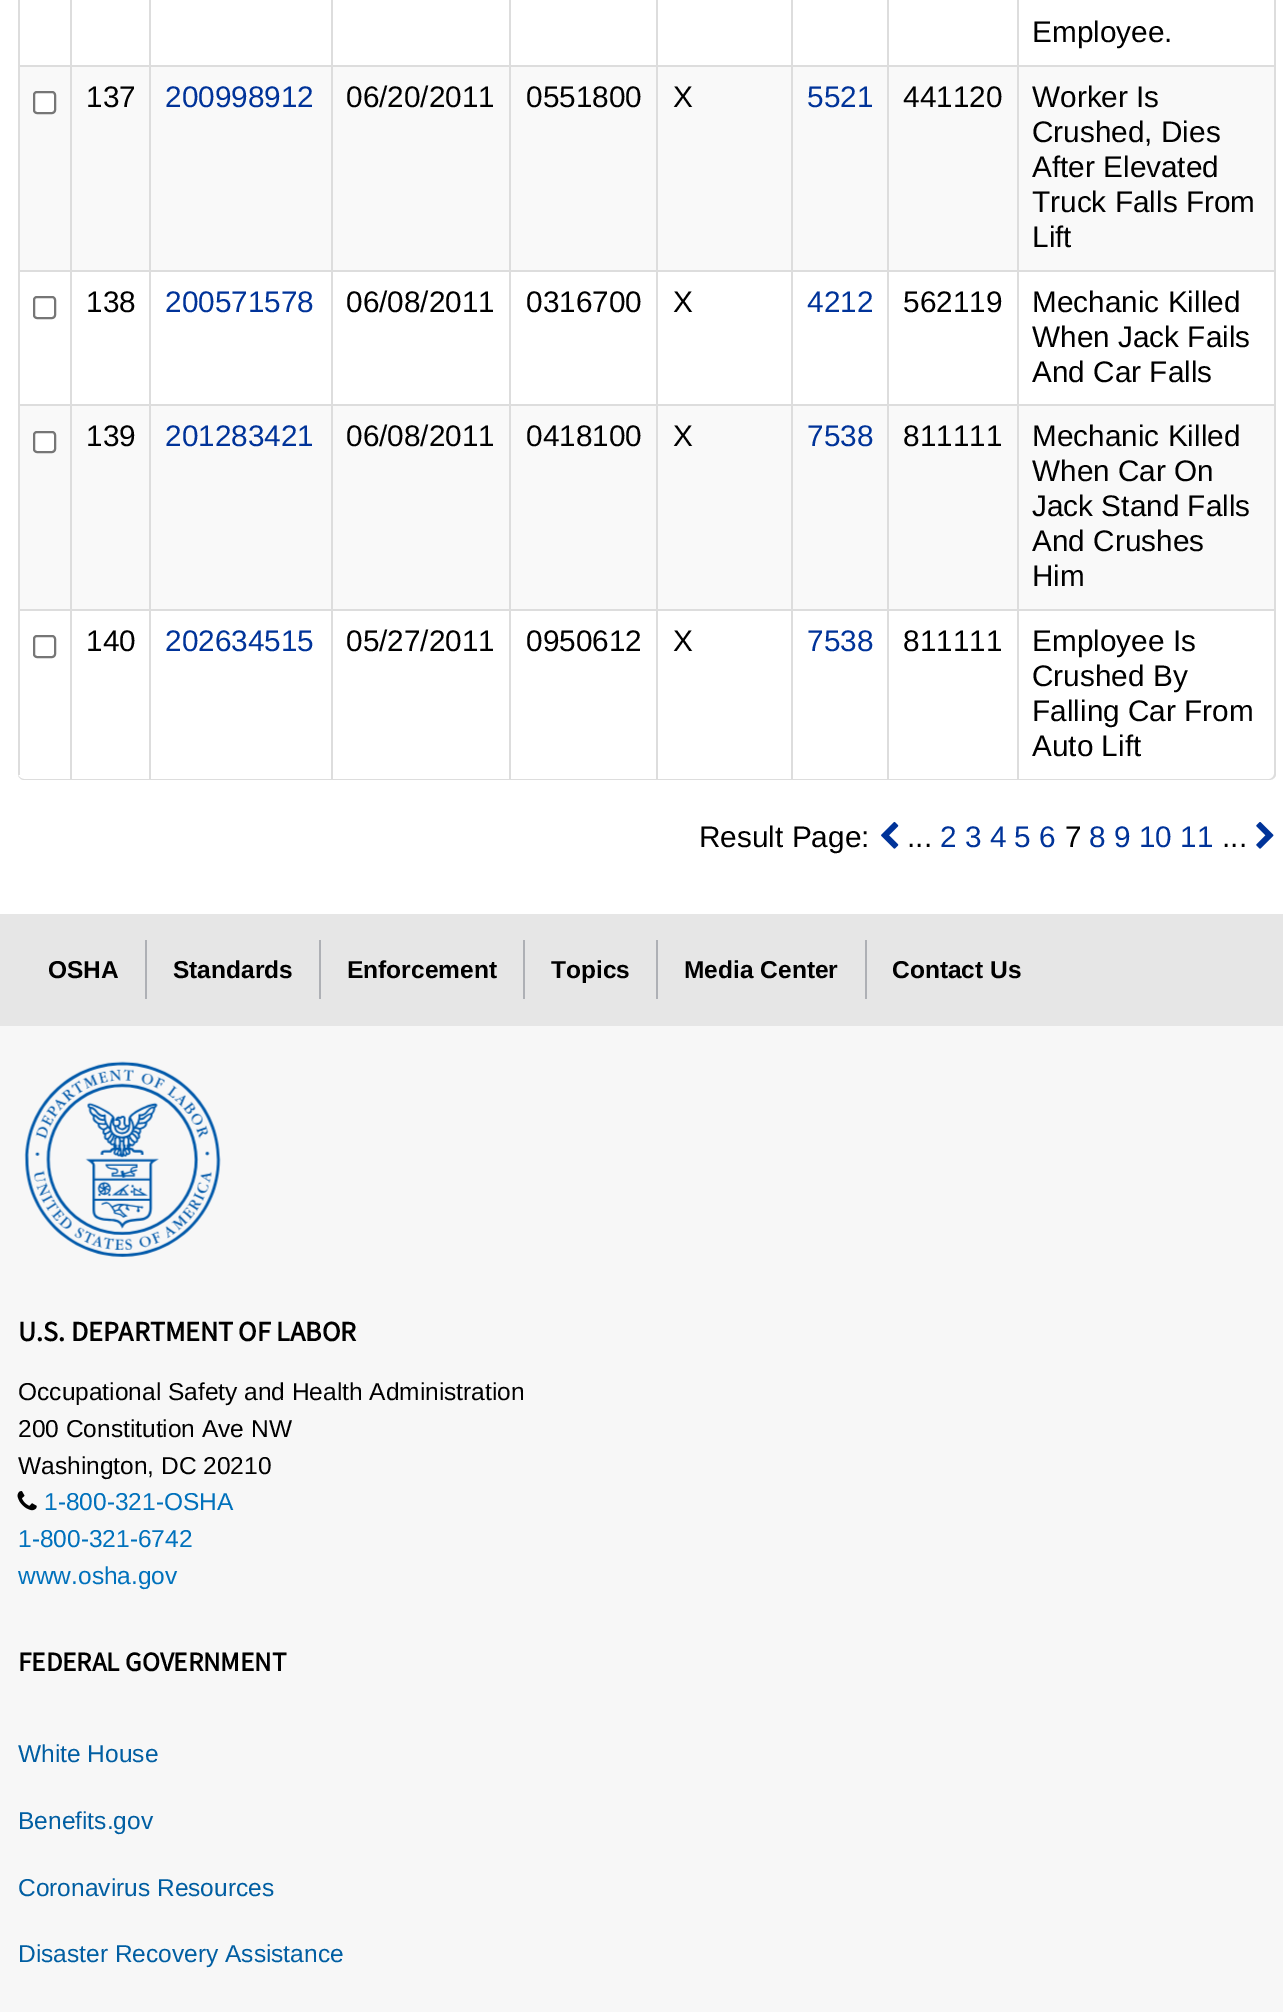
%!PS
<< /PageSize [1283 2012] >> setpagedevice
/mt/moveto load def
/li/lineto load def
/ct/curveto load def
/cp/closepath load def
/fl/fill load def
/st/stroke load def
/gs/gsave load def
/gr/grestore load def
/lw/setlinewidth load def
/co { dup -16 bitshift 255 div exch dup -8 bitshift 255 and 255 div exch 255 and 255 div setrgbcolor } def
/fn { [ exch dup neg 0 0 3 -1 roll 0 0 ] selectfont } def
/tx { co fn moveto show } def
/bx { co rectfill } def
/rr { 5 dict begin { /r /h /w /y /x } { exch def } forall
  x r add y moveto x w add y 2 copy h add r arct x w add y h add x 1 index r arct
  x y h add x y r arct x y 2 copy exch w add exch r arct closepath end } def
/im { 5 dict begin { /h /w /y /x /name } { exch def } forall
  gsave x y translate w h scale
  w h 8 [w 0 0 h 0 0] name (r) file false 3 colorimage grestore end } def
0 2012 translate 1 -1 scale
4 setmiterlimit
0 0 1283 2012 16#FFFFFF bx
16#DDDDDD co
24 -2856 mt 1269 -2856 li 1273 -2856 1276 -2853 1276 -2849 ct 1276 774 li 1276 777 1273 780 1269 780 ct 24 780 li 21 780 18 777 18 774 ct 18 -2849 li 18 -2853 21 -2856 24 -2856 ct cp 24 -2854 mt 1269 -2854 li 1272 -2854 1274 -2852 1274 -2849 ct 1274 774 li 1274 776 1272 779 1269 779 ct 24 779 li 21 779 18 776 18 774 ct 18 -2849 li 18 -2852 21 -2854 24 -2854 ct cp eofill
18 0 2 65 16#DDDDDD bx
70 0 2 65 16#DDDDDD bx
149 0 2 65 16#DDDDDD bx
331 0 2 65 16#DDDDDD bx
509 0 2 65 16#DDDDDD bx
656 0 2 65 16#DDDDDD bx
791 0 2 65 16#DDDDDD bx
887 0 2 65 16#DDDDDD bx
1017 0 2 65 16#DDDDDD bx
20 67 50 203 16#F9F9F9 bx
18 65 1256 2 16#DDDDDD bx
18 65 2 205 16#DDDDDD bx
16#FFFFFF co
34 92 21 21 3 rr gs fl gr
16#767676 co
2 lw
st
72 67 77 203 16#F9F9F9 bx
70 65 2 205 16#DDDDDD bx
151 67 180 203 16#F9F9F9 bx
149 65 2 205 16#DDDDDD bx
333 67 176 203 16#F9F9F9 bx
331 65 2 205 16#DDDDDD bx
511 67 145 203 16#F9F9F9 bx
509 65 2 205 16#DDDDDD bx
658 67 133 203 16#F9F9F9 bx
656 65 2 205 16#DDDDDD bx
793 67 94 203 16#F9F9F9 bx
791 65 2 205 16#DDDDDD bx
889 67 128 203 16#F9F9F9 bx
887 65 2 205 16#DDDDDD bx
1019 67 255 203 16#F9F9F9 bx
1017 65 2 205 16#DDDDDD bx
18 270 1256 2 16#DDDDDD bx
18 270 2 134 16#DDDDDD bx
16#767676 co
34 297 21 21 3 rr st
70 270 2 134 16#DDDDDD bx
149 270 2 134 16#DDDDDD bx
331 270 2 134 16#DDDDDD bx
509 270 2 134 16#DDDDDD bx
656 270 2 134 16#DDDDDD bx
791 270 2 134 16#DDDDDD bx
887 270 2 134 16#DDDDDD bx
1017 270 2 134 16#DDDDDD bx
20 406 50 203 16#F9F9F9 bx
18 404 1256 2 16#DDDDDD bx
18 404 2 205 16#DDDDDD bx
16#FFFFFF co
34 432 21 20 3 rr gs fl gr
16#767676 co
st
72 406 77 203 16#F9F9F9 bx
70 404 2 205 16#DDDDDD bx
151 406 180 203 16#F9F9F9 bx
149 404 2 205 16#DDDDDD bx
333 406 176 203 16#F9F9F9 bx
331 404 2 205 16#DDDDDD bx
511 406 145 203 16#F9F9F9 bx
509 404 2 205 16#DDDDDD bx
658 406 133 203 16#F9F9F9 bx
656 404 2 205 16#DDDDDD bx
793 406 94 203 16#F9F9F9 bx
791 404 2 205 16#DDDDDD bx
889 406 128 203 16#F9F9F9 bx
887 404 2 205 16#DDDDDD bx
1019 406 255 203 16#F9F9F9 bx
1017 404 2 205 16#DDDDDD bx
18 609 1256 2 16#DDDDDD bx
18 609 2 166 16#DDDDDD bx
16#767676 co
34 636 21 21 3 rr st
70 609 2 170 16#DDDDDD bx
149 609 2 170 16#DDDDDD bx
331 609 2 170 16#DDDDDD bx
509 609 2 170 16#DDDDDD bx
656 609 2 170 16#DDDDDD bx
791 609 2 170 16#DDDDDD bx
887 609 2 170 16#DDDDDD bx
1017 609 2 170 16#DDDDDD bx
(media/1.raw) 881 821 18 28 im
(media/2.raw) 1256 822 18 27 im
0 914 1283 112 16#E6E6E6 bx
145 940 2 59 16#AEB0B5 bx
319 940 2 59 16#AEB0B5 bx
523 940 2 59 16#AEB0B5 bx
656 940 2 59 16#AEB0B5 bx
865 940 2 59 16#AEB0B5 bx
0 1026 1283 986 16#F7F7F7 bx
(media/3.raw) 24 1061 197 196 im
(media/4.raw) 17 1491 20 20 im
(Employee.) 1032 42 /LiberationSans-Regular 29.75 16#000000 tx
(137) 86 107 /LiberationSans-Regular 29.75 16#000000 tx
(200998912) 165 107 /LiberationSans-Regular 29.75 16#003399 tx
(06/20/2011) 346 107 /LiberationSans-Regular 29.75 16#000000 tx
(0551800) 526 107 /LiberationSans-Regular 29.75 16#000000 tx
(X) 673 107 /LiberationSans-Regular 29.75 16#000000 tx
(5521) 807 107 /LiberationSans-Regular 29.75 16#003399 tx
(441120) 903 107 /LiberationSans-Regular 29.75 16#000000 tx
(Worker Is) 1032 107 /LiberationSans-Regular 29.75 16#000000 tx
(Crushed, Dies) 1032 142 /LiberationSans-Regular 29.75 16#000000 tx
(After Elevated) 1032 177 /LiberationSans-Regular 29.75 16#000000 tx
(Truck Falls From) 1032 212 /LiberationSans-Regular 29.75 16#000000 tx
(Lift) 1032 247 /LiberationSans-Regular 29.75 16#000000 tx
(138) 86 312 /LiberationSans-Regular 29.75 16#000000 tx
(200571578) 165 312 /LiberationSans-Regular 29.75 16#003399 tx
(06/08/2011) 346 312 /LiberationSans-Regular 29.75 16#000000 tx
(0316700) 526 312 /LiberationSans-Regular 29.75 16#000000 tx
(X) 673 312 /LiberationSans-Regular 29.75 16#000000 tx
(4212) 807 312 /LiberationSans-Regular 29.75 16#003399 tx
(562119) 903 312 /LiberationSans-Regular 29.75 16#000000 tx
(Mechanic Killed) 1032 312 /LiberationSans-Regular 29.75 16#000000 tx
(When Jack Fails) 1032 347 /LiberationSans-Regular 29.75 16#000000 tx
(And Car Falls) 1032 382 /LiberationSans-Regular 29.75 16#000000 tx
(139) 86 446 /LiberationSans-Regular 29.75 16#000000 tx
(201283421) 165 446 /LiberationSans-Regular 29.75 16#003399 tx
(06/08/2011) 346 446 /LiberationSans-Regular 29.75 16#000000 tx
(0418100) 526 446 /LiberationSans-Regular 29.75 16#000000 tx
(X) 673 446 /LiberationSans-Regular 29.75 16#000000 tx
(7538) 807 446 /LiberationSans-Regular 29.75 16#003399 tx
(811111) 903 446 /LiberationSans-Regular 29.75 16#000000 tx
(Mechanic Killed) 1032 446 /LiberationSans-Regular 29.75 16#000000 tx
(When Car On) 1032 481 /LiberationSans-Regular 29.75 16#000000 tx
(Jack Stand Falls) 1032 516 /LiberationSans-Regular 29.75 16#000000 tx
(And Crushes) 1032 551 /LiberationSans-Regular 29.75 16#000000 tx
(Him) 1032 586 /LiberationSans-Regular 29.75 16#000000 tx
(140) 86 651 /LiberationSans-Regular 29.75 16#000000 tx
(202634515) 165 651 /LiberationSans-Regular 29.75 16#003399 tx
(05/27/2011) 346 651 /LiberationSans-Regular 29.75 16#000000 tx
(0950612) 526 651 /LiberationSans-Regular 29.75 16#000000 tx
(X) 673 651 /LiberationSans-Regular 29.75 16#000000 tx
(7538) 807 651 /LiberationSans-Regular 29.75 16#003399 tx
(811111) 903 651 /LiberationSans-Regular 29.75 16#000000 tx
(Employee Is) 1032 651 /LiberationSans-Regular 29.75 16#000000 tx
(Crushed By) 1032 686 /LiberationSans-Regular 29.75 16#000000 tx
(Falling Car From) 1032 721 /LiberationSans-Regular 29.75 16#000000 tx
(Auto Lift) 1032 756 /LiberationSans-Regular 29.75 16#000000 tx
(Result Page:) 699 847 /LiberationSans-Regular 29.75 16#000000 tx
(...) 907 847 /LiberationSans-Regular 29.75 16#000000 tx
(2 3 4 5 6) 940 847 /LiberationSans-Regular 29.75 16#003399 tx
(7) 1065 847 /LiberationSans-Regular 29.75 16#000000 tx
(8 9 10 11) 1089 847 /LiberationSans-Regular 29.75 16#003399 tx
(...) 1222 847 /LiberationSans-Regular 29.75 16#000000 tx
(OSHA) 48 978 /LiberationSans-Bold 24.5 16#000000 tx
(Standards) 173 978 /LiberationSans-Bold 24.5 16#000000 tx
(Enforcement) 347 978 /LiberationSans-Bold 24.5 16#000000 tx
(Topics) 551 978 /LiberationSans-Bold 24.5 16#000000 tx
(Media Center) 684 978 /LiberationSans-Bold 24.5 16#000000 tx
(Contact Us) 892 978 /LiberationSans-Bold 24.5 16#000000 tx
(U.S. DEPARTMENT OF LABOR) 18 1341 /SourceSansPro-Bold 28 16#000000 tx
(Occupational Safety and Health Administration) 18 1400 /LiberationSans-Regular 24.5 16#000000 tx
(200 Constitution Ave NW) 18 1437 /LiberationSans-Regular 24.5 16#000000 tx
(Washington, DC 20210) 18 1474 /LiberationSans-Regular 24.5 16#000000 tx
(1-800-321-OSHA) 44 1510 /LiberationSans-Regular 24.5 16#0071BC tx
(1-800-321-6742) 18 1547 /LiberationSans-Regular 24.5 16#0071BC tx
(www.osha.gov) 18 1584 /LiberationSans-Regular 24.5 16#0071BC tx
(FEDERAL GOVERNMENT) 18 1671 /SourceSansPro-Bold 27 16#000000 tx
(White House) 18 1762 /LiberationSans-Regular 24.5 16#005EA2 tx
(Benefits.gov) 18 1829 /LiberationSans-Regular 24.5 16#005EA2 tx
(Coronavirus Resources) 18 1896 /LiberationSans-Regular 24.5 16#005EA2 tx
(Disaster Recovery Assistance) 18 1962 /LiberationSans-Regular 24.5 16#005EA2 tx
showpage
